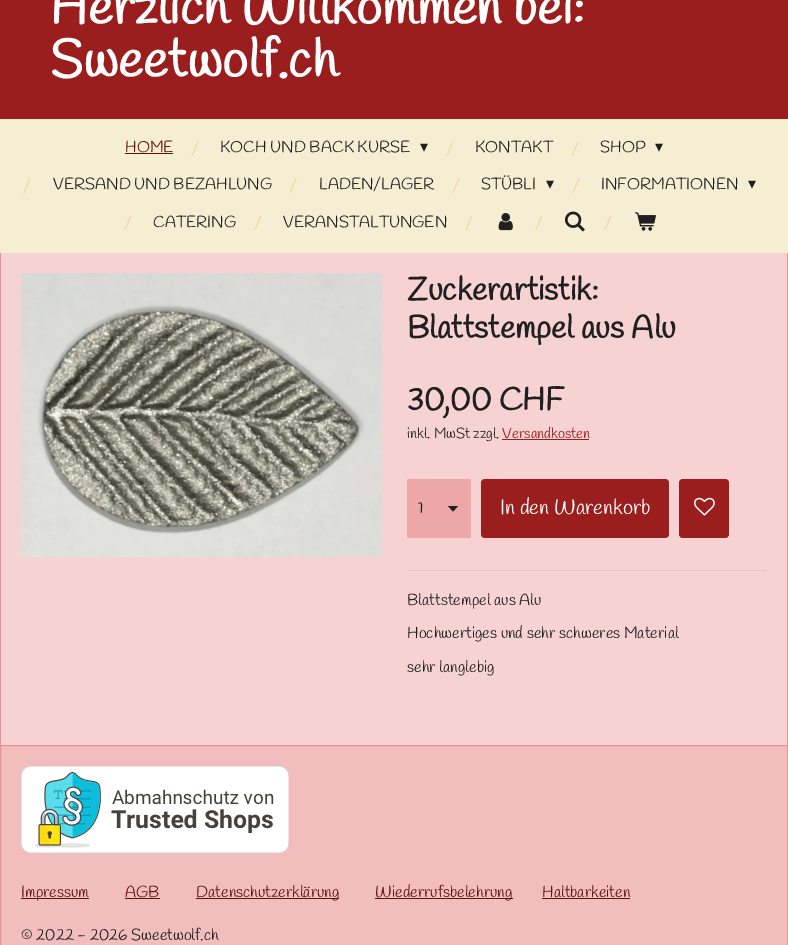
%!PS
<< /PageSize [788 945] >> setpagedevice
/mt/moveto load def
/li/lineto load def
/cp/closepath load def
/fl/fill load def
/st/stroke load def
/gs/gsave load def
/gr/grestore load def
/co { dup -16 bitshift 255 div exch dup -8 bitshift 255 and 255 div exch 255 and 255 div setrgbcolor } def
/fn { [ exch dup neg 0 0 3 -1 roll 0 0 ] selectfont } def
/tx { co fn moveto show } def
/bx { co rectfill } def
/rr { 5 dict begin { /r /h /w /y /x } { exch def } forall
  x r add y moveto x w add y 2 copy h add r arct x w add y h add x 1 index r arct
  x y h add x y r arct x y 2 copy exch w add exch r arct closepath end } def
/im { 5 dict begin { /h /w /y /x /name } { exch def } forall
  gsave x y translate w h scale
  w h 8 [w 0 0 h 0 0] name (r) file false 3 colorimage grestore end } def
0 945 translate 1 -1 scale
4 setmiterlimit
0 0 788 945 16#9A1E1E bx
0 119 788 134 16#F6EED2 bx
125 153 48 1 16#611313 bx
(media/1.raw) 498 213 15 18 im
(media/2.raw) 565 211 20 21 im
(media/3.raw) 635 212 21 19 im
1 253 786 492 16#F6D2D2 bx
787 253 1 492 16#E99292 bx
0 253 1 492 16#E99292 bx
(media/4.raw) 21 273 361 284 im
502 439 87 1 16#9A1E1E bx
16#EEA7A7 co
407 479 64 59 2 rr fl
16#202020 co
453 511.5 mt 448 506 li 458 506 li cp fl
16#9A1E1E co
481 479 188 59 4 rr fl
679 479 50 59 4 rr fl
(media/5.raw) 694 497 21 19 im
407 570 360 1 16#E7C6C6 bx
16#F2BDBD co
.5 745.5 mt 787.5 745.5 li 787.5 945.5 li .5 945.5 li cp gs fl gr
16#E99292 co
st
(media/6.raw) 21 766 268 87 im
21 898 68 1 16#611313 bx
125 898 35 1 16#611313 bx
196 898 143 1 16#611313 bx
375 898 138 1 16#611313 bx
542 898 88 1 16#611313 bx
(Herzlich Willkommen bei:) 50 24 /Handlee-Bold 52.5 16#FFFFFF tx
(Sweetwolf.ch) 50 77 /Handlee-Bold 52.5 16#FFFFFF tx
(HOME) 125 152 /Handlee-Regular 16 16#611313 tx
(/) 191 154 /Handlee-Regular 16 16#E9D692 tx
(KOCH UND BACK KURSE) 220 152 /Handlee-Regular 16 16#202020 tx
(▾) 420 152 /DejaVuSans-Regular 16 16#202020 tx
(/) 446 154 /Handlee-Regular 16 16#E9D692 tx
(KONTAKT) 475 152 /Handlee-Regular 16 16#202020 tx
(/) 571 154 /Handlee-Regular 16 16#E9D692 tx
(SHOP) 600 152 /Handlee-Regular 16 16#202020 tx
(▾) 655 152 /DejaVuSans-Regular 16 16#202020 tx
(/) 23 191 /Handlee-Regular 16 16#E9D692 tx
(VERSAND UND BEZAHLUNG) 53 189 /Handlee-Regular 16 16#202020 tx
(/) 289 191 /Handlee-Regular 16 16#E9D692 tx
(LADEN/LAGER) 319 189 /Handlee-Regular 16 16#202020 tx
(/) 452 191 /Handlee-Regular 16 16#E9D692 tx
(STÜBLI) 481 189 /Handlee-Regular 16 16#202020 tx
(▾) 546 189 /DejaVuSans-Regular 16 16#202020 tx
(/) 572 191 /Handlee-Regular 16 16#E9D692 tx
(INFORMATIONEN) 601 189 /Handlee-Regular 16 16#202020 tx
(▾) 748 189 /DejaVuSans-Regular 16 16#202020 tx
(/) 124 228 /Handlee-Regular 16 16#E9D692 tx
(CATERING) 153 227 /Handlee-Regular 16 16#202020 tx
(/) 254 228 /Handlee-Regular 16 16#E9D692 tx
(VERANSTALTUNGEN) 283 227 /Handlee-Regular 16 16#202020 tx
(/) 465 228 /Handlee-Regular 16 16#E9D692 tx
(/) 535 228 /Handlee-Regular 16 16#E9D692 tx
(/) 604 228 /Handlee-Regular 16 16#E9D692 tx
(Zuckerartistik:) 407 300 /Handlee-Bold 32 16#202020 tx
(Blattstempel aus Alu) 407 338 /Handlee-Bold 32 16#202020 tx
(30,00 CHF) 407 410 /Handlee-Bold 32 16#202020 tx
(inkl. MwSt zzgl.) 407 438 /Handlee-Regular 14.5 16#202020 tx
(Versandkosten) 502 438 /Handlee-Regular 14.5 16#9A1E1E tx
(1) 418 513 /Handlee-Regular 16 16#202020 tx
(In den Warenkorb) 500 514 /Handlee-Regular 20.75 16#FFFFFF tx
(Blattstempel aus Alu) 407 605 /Handlee-Regular 16 16#202020 tx
(Hochwertiges und sehr schweres Material) 407 638 /Handlee-Regular 16 16#202020 tx
(sehr langlebig) 407 672 /Handlee-Regular 16 16#202020 tx
(Impressum) 21 897 /Handlee-Regular 16 16#611313 tx
(AGB) 125 897 /Handlee-Regular 16 16#611313 tx
(Datenschutzerklärung) 196 897 /Handlee-Regular 16 16#611313 tx
(Wiederrufsbelehrung) 375 897 /Handlee-Regular 16 16#611313 tx
(Haltbarkeiten) 542 897 /Handlee-Regular 16 16#611313 tx
(© 2022 - 2026 Sweetwolf.ch) 21 940 /Handlee-Regular 16 16#202020 tx
showpage
